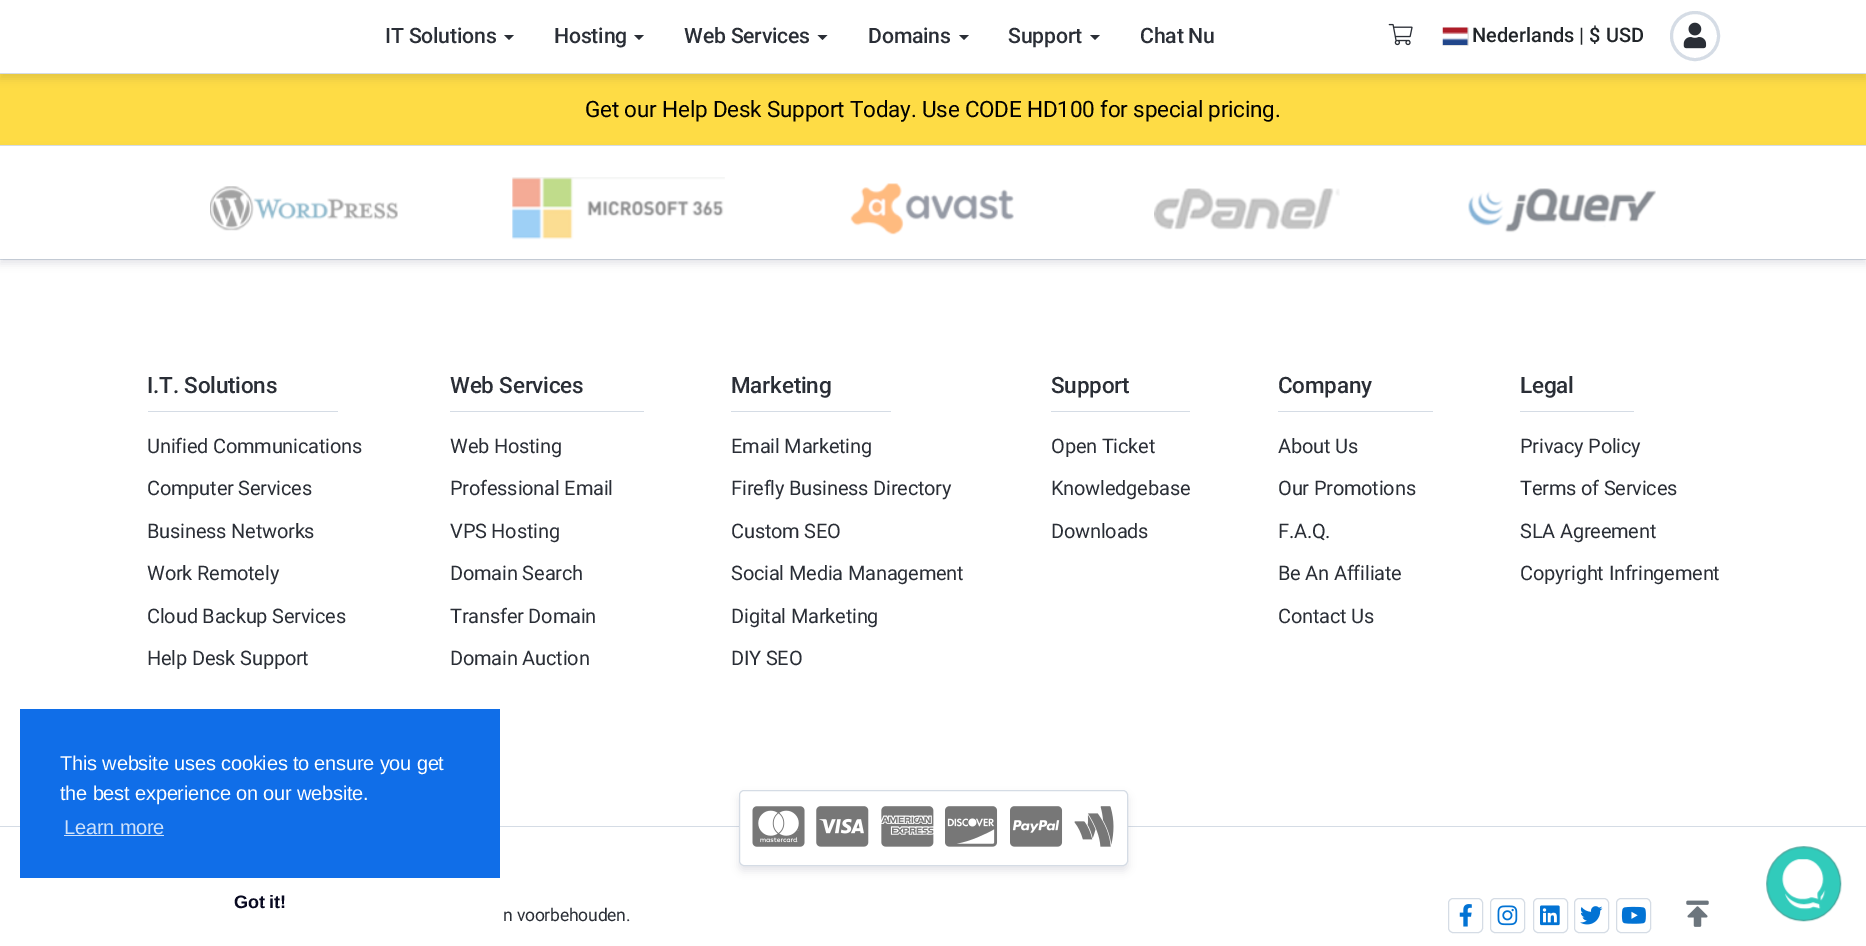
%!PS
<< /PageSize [1866 946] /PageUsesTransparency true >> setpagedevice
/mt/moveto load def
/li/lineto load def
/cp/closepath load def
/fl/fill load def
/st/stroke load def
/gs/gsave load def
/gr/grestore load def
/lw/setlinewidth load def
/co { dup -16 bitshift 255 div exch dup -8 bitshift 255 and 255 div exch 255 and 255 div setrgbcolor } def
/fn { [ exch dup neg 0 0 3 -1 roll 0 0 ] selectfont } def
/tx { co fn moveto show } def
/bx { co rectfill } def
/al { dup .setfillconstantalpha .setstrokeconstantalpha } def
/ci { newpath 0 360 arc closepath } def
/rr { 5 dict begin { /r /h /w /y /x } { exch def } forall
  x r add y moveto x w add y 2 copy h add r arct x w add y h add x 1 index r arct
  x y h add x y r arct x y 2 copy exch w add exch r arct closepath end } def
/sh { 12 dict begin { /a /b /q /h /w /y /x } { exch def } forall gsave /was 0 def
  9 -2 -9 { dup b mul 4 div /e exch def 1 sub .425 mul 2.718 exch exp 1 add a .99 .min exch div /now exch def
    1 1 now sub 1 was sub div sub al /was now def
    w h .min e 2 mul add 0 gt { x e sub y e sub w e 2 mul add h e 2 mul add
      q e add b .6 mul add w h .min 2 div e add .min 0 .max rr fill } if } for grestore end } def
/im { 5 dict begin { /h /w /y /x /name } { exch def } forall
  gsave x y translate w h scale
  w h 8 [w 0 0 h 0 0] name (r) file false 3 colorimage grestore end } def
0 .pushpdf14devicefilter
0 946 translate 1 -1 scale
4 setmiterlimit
0 0 1866 946 16#FFFFFF bx
0 74 1866 71 16#FEDC45 bx
16#000B28 co
0 5 1866 74 0 4 .1 sh
0 0 1866 73 16#FFFFFF bx
0 73 1866 1 16#D5DCE5 bx
16#2A2E36 co
504 35 mt 514 35 li 509 40 li cp fl
634 35 mt 644 35 li 639 40 li cp fl
817.5 35 mt 827.5 35 li 822.5 40 li cp fl
959 35 mt 969 35 li 964 40 li cp fl
1090 35 mt 1100 35 li 1095 40 li cp fl
(media/1.raw) 1388 23 25 23 im
16#888888 co
1443 28 25 17 0 .5 1 sh
1467 28 1 17 16#DBDBDB bx
(media/2.raw) 1442 27 26 18 im
16#D5DCE5 co
3 lw
1695 36 23.5 ci st
(media/3.raw) 1683 22 24 27 im
0 259 1866 1 16#D5DCE5 bx
gs
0 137 mt 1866 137 li 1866 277 li 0 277 li cp 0 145 mt 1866 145 li 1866 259 li 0 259 li cp eoclip newpath
16#000B28 co
0 150 1866 114 0 4 .1 sh
gr
0 145 1866 1 16#D5DCE5 bx
(media/4.raw) 210 186 188 45 im
(media/5.raw) 512 177 213 63 im
(media/6.raw) 850 183 164 52 im
(media/7.raw) 1154 188 186 42 im
(media/8.raw) 1468 188 188 45 im
148 411 190 1 16#D5DCE5 bx
450 411 194 1 16#D5DCE5 bx
731 411 160 1 16#D5DCE5 bx
1051 411 139 1 16#D5DCE5 bx
1278 411 155 1 16#D5DCE5 bx
1520 411 114 1 16#D5DCE5 bx
0 826 1866 1 16#D5DCE5 bx
16#000B28 co
739 795 389 76 5 4 .1 sh
16#FFFFFF co
739.5 790.5 388 75 4.5 rr gs fl gr
16#D5DCE5 co
1 lw
st
(media/9.raw) 752 806 53 41 im
(media/10.raw) 816 806 53 41 im
(media/11.raw) 881 806 53 41 im
(media/12.raw) 945 806 53 41 im
(media/13.raw) 1010 806 53 41 im
(media/14.raw) 1074 806 40 41 im
1448.5 898.5 34 34 4.5 rr st
(media/15.raw) 1459 904 13 23 im
1490.5 898.5 34 34 4.5 rr st
(media/16.raw) 1497 905 21 21 im
1533.5 898.5 34 34 4.5 rr st
(media/17.raw) 1540 905 20 21 im
1574.5 898.5 34 34 4.5 rr st
(media/18.raw) 1580 906 23 19 im
1616.5 898.5 34 34 4.5 rr st
(media/19.raw) 1621 906 25 18 im
(media/20.raw) 1686 900 23 27 im
20 709 480 169 16#106EE8 bx
64 835 100 1 16#CFE2FA bx
(media/21.raw) 1766 846 76 76 im
/Roboto-Medium 21.25 fn
16#2A2E36 co
385 43 mt -.2 0 (IT Solutions) ashow
554 43 mt -.2 0 (Hosting) ashow
684 43 mt -.2 0 (Web Services) ashow
868 43 mt -.2 0 (Domains) ashow
1008 43 mt -.2 0 (Support) ashow
1140 43 mt -.2 0 (Chat Nu) ashow
(Nederlands | $ USD) 1472 42 /Roboto-Medium 20 16#212529 tx
/Roboto-Regular 22.5 fn
16#000000 co
585 117 mt -.2 0 (Get our Help Desk Support Today. Use CODE HD100 for special pricing.) ashow
/Roboto-Medium 22.5 fn
16#2A2E36 co
147 393 mt -.2 0 (I.T. Solutions) ashow
/Roboto-Regular 20 fn
147 453 mt -.2 0 (Unified Communications) ashow
147 495 mt -.2 0 (Computer Services) ashow
147 538 mt -.2 0 (Business Networks) ashow
147 580 mt -.2 0 (Work Remotely) ashow
147 623 mt -.2 0 (Cloud Backup Services) ashow
147 665 mt -.2 0 (Help Desk Support) ashow
/Roboto-Medium 22.5 fn
450 393 mt -.2 0 (Web Services) ashow
/Roboto-Regular 20 fn
450 453 mt -.2 0 (Web Hosting) ashow
450 495 mt -.2 0 (Professional Email) ashow
450 538 mt -.2 0 (VPS Hosting) ashow
450 580 mt -.2 0 (Domain Search) ashow
450 623 mt -.2 0 (Transfer Domain) ashow
450 665 mt -.2 0 (Domain Auction) ashow
/Roboto-Medium 22.5 fn
731 393 mt -.2 0 (Marketing) ashow
/Roboto-Regular 20 fn
731 453 mt -.2 0 (Email Marketing) ashow
731 495 mt -.2 0 (Firefly Business Directory) ashow
731 538 mt -.2 0 (Custom SEO) ashow
731 580 mt -.2 0 (Social Media Management) ashow
731 623 mt -.2 0 (Digital Marketing) ashow
731 665 mt -.2 0 (DIY SEO) ashow
/Roboto-Medium 22.5 fn
1051 393 mt -.2 0 (Support) ashow
/Roboto-Regular 20 fn
1051 453 mt -.2 0 (Open Ticket) ashow
1051 495 mt -.2 0 (Knowledgebase) ashow
1051 538 mt -.2 0 (Downloads) ashow
/Roboto-Medium 22.5 fn
1278 393 mt -.2 0 (Company) ashow
/Roboto-Regular 20 fn
1278 453 mt -.2 0 (About Us) ashow
1278 495 mt -.2 0 (Our Promotions) ashow
1278 538 mt -.2 0 (F.A.Q.) ashow
1278 580 mt -.2 0 (Be An Affiliate) ashow
1278 623 mt -.2 0 (Contact Us) ashow
/Roboto-Medium 22.5 fn
1520 393 mt -.2 0 (Legal) ashow
/Roboto-Regular 20 fn
1520 453 mt -.2 0 (Privacy Policy) ashow
1520 495 mt -.2 0 (Terms of Services) ashow
1520 538 mt -.2 0 (SLA Agreement) ashow
1520 580 mt -.2 0 (Copyright Infringement) ashow
/Roboto-Regular 17.5 fn
503 921 mt -.2 0 (n voorbehouden.) ashow
/LiberationSans-Regular 20 fn
16#FFFFFF co
60 770 mt -.2 0 (This website uses cookies to ensure you get) ashow
60 800 mt -.2 0 (the best experience on our website.) ashow
16#CFE2FA co
64 834 mt -.2 0 (Learn more) ashow
/LiberationSans-Bold 18 fn
16#090A21 co
234 908 mt -.2 0 (Got it!) ashow
.poppdf14devicefilter showpage
